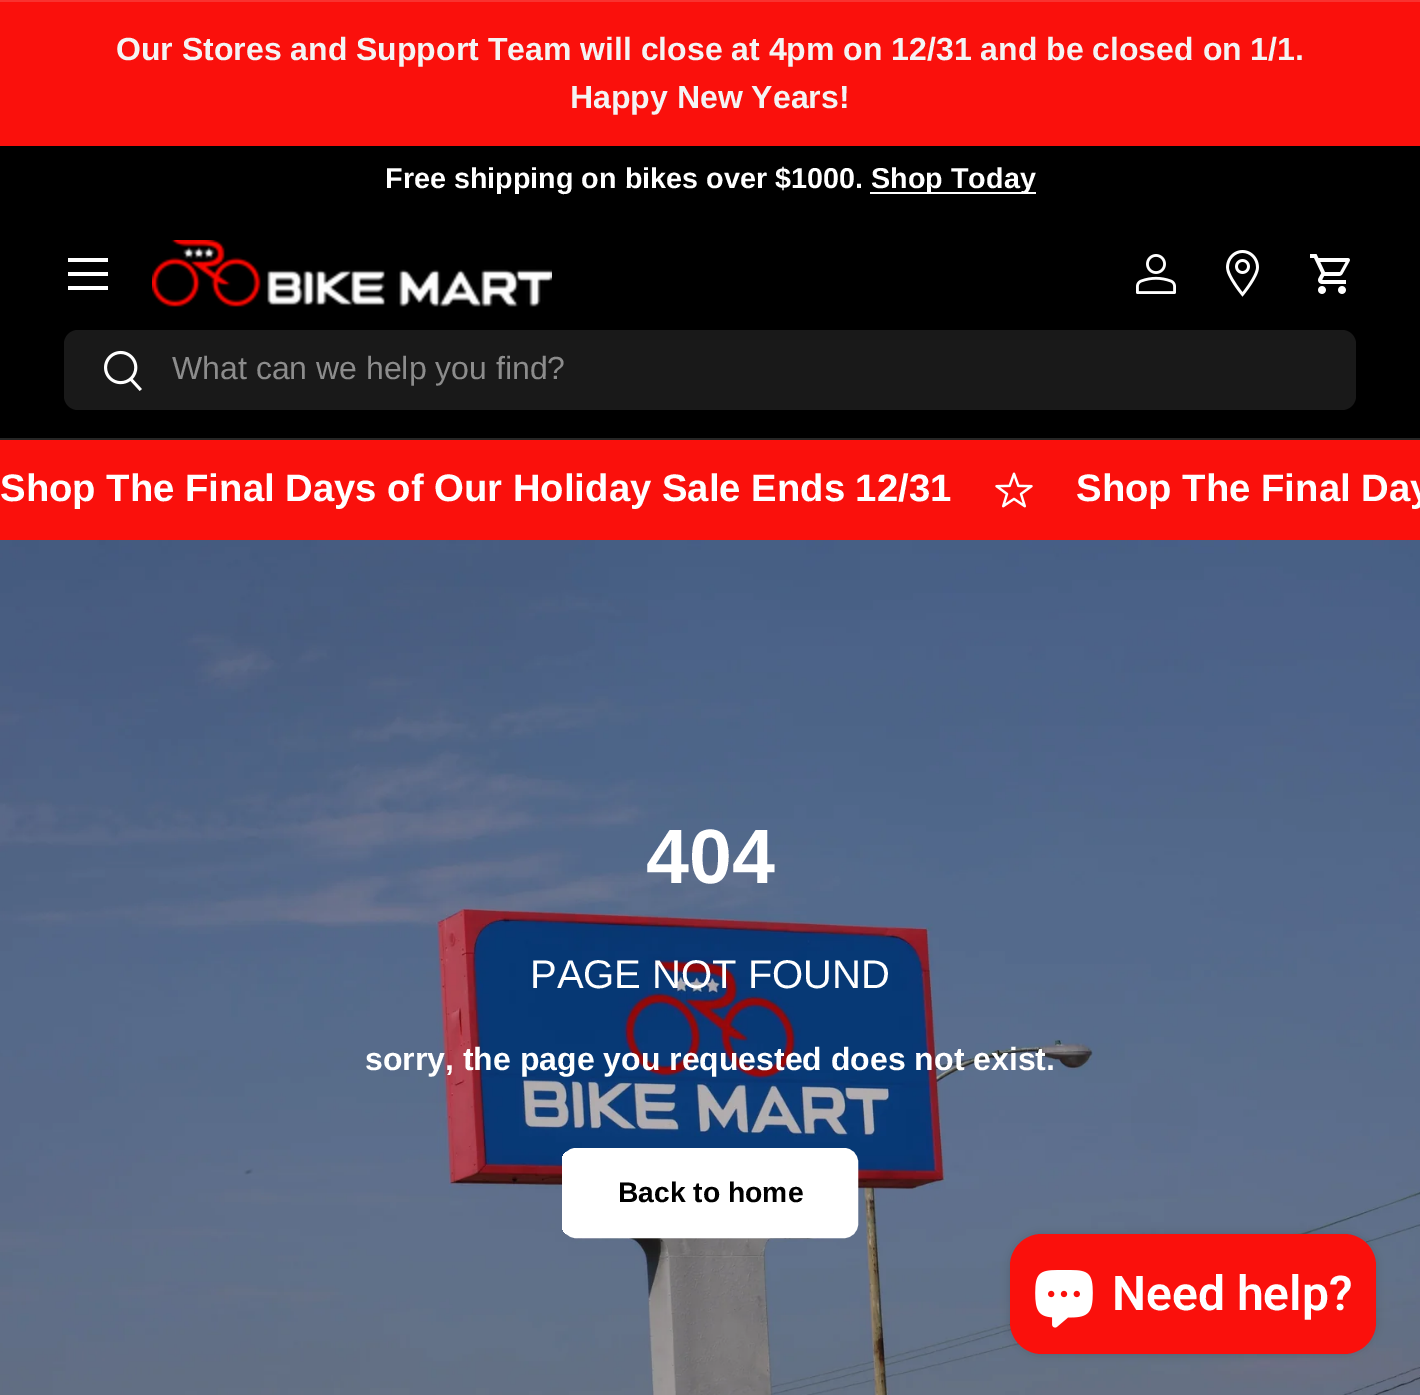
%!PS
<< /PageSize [1420 1395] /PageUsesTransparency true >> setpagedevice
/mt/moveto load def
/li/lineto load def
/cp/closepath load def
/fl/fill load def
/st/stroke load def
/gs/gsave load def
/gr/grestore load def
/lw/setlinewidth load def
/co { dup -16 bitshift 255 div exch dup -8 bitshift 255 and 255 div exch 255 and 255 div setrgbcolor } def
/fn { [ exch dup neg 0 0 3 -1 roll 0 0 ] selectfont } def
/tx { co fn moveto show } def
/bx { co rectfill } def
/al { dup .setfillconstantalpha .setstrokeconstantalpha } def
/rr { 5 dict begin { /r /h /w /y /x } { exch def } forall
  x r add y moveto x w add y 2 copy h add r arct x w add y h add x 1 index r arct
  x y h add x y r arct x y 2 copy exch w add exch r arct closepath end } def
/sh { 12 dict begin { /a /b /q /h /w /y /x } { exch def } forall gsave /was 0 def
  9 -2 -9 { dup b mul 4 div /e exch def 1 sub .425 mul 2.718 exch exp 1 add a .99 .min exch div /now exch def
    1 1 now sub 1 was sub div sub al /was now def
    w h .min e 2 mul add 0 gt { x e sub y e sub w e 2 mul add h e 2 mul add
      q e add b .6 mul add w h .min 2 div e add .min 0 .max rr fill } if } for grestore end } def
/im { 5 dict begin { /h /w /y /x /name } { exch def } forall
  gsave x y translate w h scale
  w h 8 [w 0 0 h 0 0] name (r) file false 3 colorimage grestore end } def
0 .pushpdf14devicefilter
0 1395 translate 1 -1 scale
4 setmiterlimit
0 0 1420 1395 16#FA100C bx
0 0 1420 2 16#F9322F bx
0 146 1420 292 16#000000 bx
870 192 166 2 16#FFFFFF bx
0 438 1420 2 16#262626 bx
68 258 40 4 16#FFFFFF bx
68 286 40 4 16#FFFFFF bx
68 272 40 4 16#FFFFFF bx
(media/1.raw) 152 240 400 67 im
(media/2.raw) 1136 254 40 40 im
(media/3.raw) 1226 250 33 47 im
(media/4.raw) 1310 254 40 40 im
16#191919 co
64 330 1292 80 14 rr fl
(media/5.raw) 104 350 38 41 im
(media/6.raw) 995 472 38 36 im
(media/7.raw) 0 540 1420 855 im
gs
562 1148 296 90 14 rr clip newpath
gs 562 1152 mt 854 1152 li 854 1234 li 562 1234 li cp clip newpath
<< /ShadingType 2 /ColorSpace /DeviceRGB /Coords [5.7 1089 838 1297] /Extend [true true] /Function << /FunctionType 3 /Domain [0 1] /Functions [<< /FunctionType 2 /Domain [0 1] /C0 [.902 .902 .902] /C1 [.902 .902 .902] /N 1 >> << /FunctionType 2 /Domain [0 1] /C0 [1 1 1] /C1 [1 1 1] /N 1 >>] /Bounds [.6] /Encode [0 1 0 1] >> >> shfill gr
gr
16#FFFFFF co
4 lw
564 1150 292 86 12 rr st
16#000000 co
1010 1234 366 120 32 5 .15 sh
16#FA100C co
1010 1234 366 120 32 rr fl
(media/8.raw) 1035 1270 58 58 im
(Our Stores and Support Team will close at 4pm on 12/31 and be closed on 1/1.) 116 60 /LiberationSans-Bold 32 16#F4F4F4 tx
(Happy New Years!) 570 108 /LiberationSans-Bold 32 16#F4F4F4 tx
(Free shipping on bikes over $1000.) 385 188 /LiberationSans-Bold 28.75 16#FFFFFF tx
(Shop Today) 871 188 /LiberationSans-Bold 28.75 16#FFFFFF tx
(What can we help you find?) 172 379 /LiberationSans-Regular 32 16#8C8C8C tx
(Shop The Final Days of Our Holiday Sale Ends 12/31) 0 501 /LiberationSans-Bold 38.3 16#FFFFFF tx
(Shop The Final Day) 1076 501 /LiberationSans-Bold 38.3 16#FFFFFF tx
(404) 646 883 /LiberationSans-Bold 77 16#FFFFFF tx
(PAGE NOT FOUND) 530 988 /LiberationSans-Regular 40 16#FFFFFF tx
(sorry, the page you requested does not exist.) 365 1070 /LiberationSans-Bold 32 16#FFFFFF tx
(Back to home) 618 1202 /LiberationSans-Bold 28.25 16#000000 tx
(Need help?) 1112 1310 /Roboto-SemiBold 48 16#FFFFFF tx
.poppdf14devicefilter showpage
